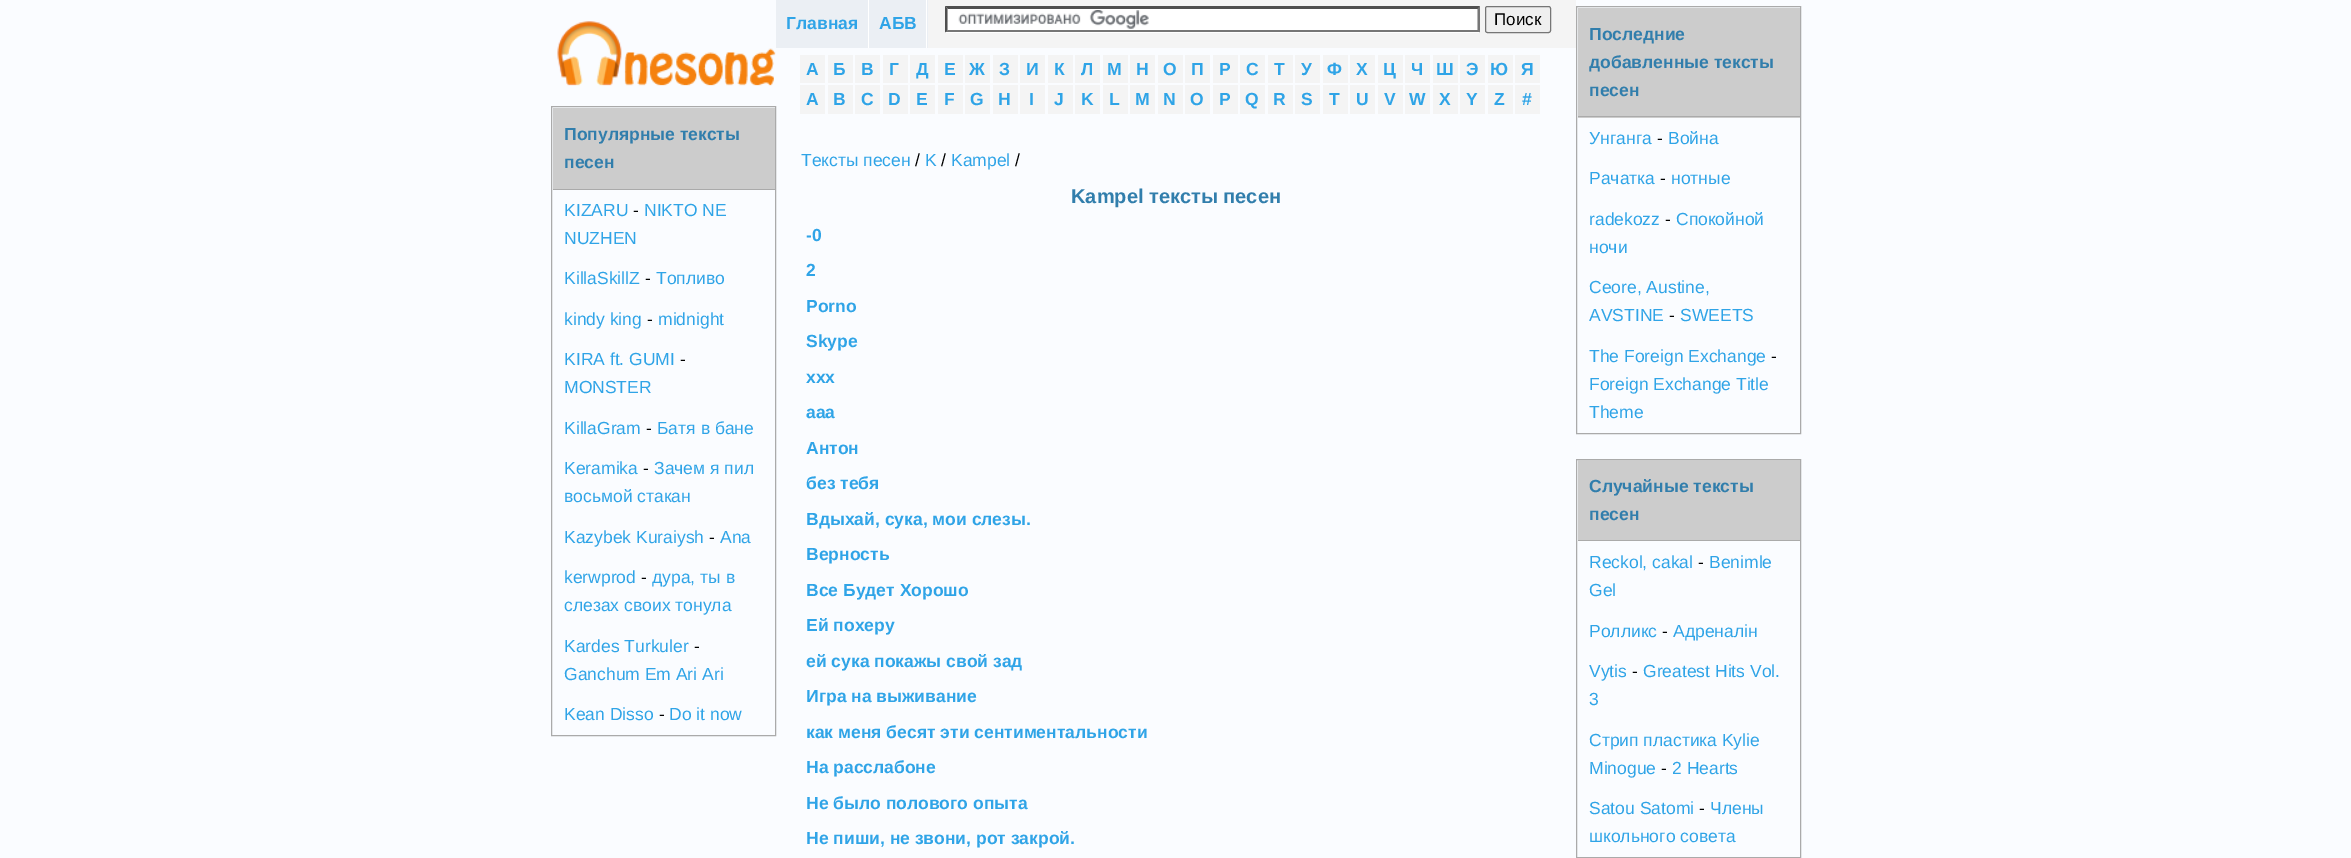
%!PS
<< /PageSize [2351 858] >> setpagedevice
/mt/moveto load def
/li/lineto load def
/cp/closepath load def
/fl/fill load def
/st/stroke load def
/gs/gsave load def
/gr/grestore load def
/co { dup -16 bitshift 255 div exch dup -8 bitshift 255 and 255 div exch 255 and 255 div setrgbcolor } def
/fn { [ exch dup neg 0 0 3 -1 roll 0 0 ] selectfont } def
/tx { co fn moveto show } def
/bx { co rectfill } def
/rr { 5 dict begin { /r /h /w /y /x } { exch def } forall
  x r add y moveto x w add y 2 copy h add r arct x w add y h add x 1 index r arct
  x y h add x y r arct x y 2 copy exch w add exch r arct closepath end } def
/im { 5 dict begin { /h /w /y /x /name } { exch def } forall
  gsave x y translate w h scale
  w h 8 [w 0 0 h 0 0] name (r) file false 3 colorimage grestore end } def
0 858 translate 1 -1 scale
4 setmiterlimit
0 0 2351 858 16#FAFCFF bx
(media/1.raw) 557 21 219 65 im
16#AAAAAA co
551.5 106.5 224 629 rectstroke
553 108 222 81 16#CCCCCC bx
553 189 222 1 16#AAAAAA bx
928 0 648 48 16#F4F4F4 bx
776 0 92 48 16#EBEFF4 bx
868 0 1 48 16#FFFFFF bx
869 0 59 48 16#EBEFF4 bx
926 0 1 48 16#FFFFFF bx
945 6 535 27 16#FFFFFF bx
(media/2.raw) 958 10 191 19 im
16#4F4F4F co
945 6 mt 1480 6 li 1478 9 li 948 9 li cp fl
16#767676 co
1480 6 mt 1480 32.5 li 1477.5 30 li 1477.5 9 li cp fl
1480 32 mt 945 32 li 948 30 li 1478 30 li cp fl
16#4F4F4F co
945 32.5 mt 945 6 li 947.5 9 li 947.5 30 li cp fl
16#EFEFEF co
1485.5 6.5 65 26 2 rr gs fl gr
16#767676 co
st
800 55 25 28 16#F4F4F4 bx
828 55 25 28 16#F4F4F4 bx
855 55 25 28 16#F4F4F4 bx
883 55 25 28 16#F4F4F4 bx
910 55 25 28 16#F4F4F4 bx
938 55 25 28 16#F4F4F4 bx
965 55 25 28 16#F4F4F4 bx
993 55 25 28 16#F4F4F4 bx
1020 55 25 28 16#F4F4F4 bx
1048 55 25 28 16#F4F4F4 bx
1075 55 25 28 16#F4F4F4 bx
1103 55 25 28 16#F4F4F4 bx
1130 55 25 28 16#F4F4F4 bx
1158 55 25 28 16#F4F4F4 bx
1185 55 25 28 16#F4F4F4 bx
1213 55 25 28 16#F4F4F4 bx
1240 55 25 28 16#F4F4F4 bx
1268 55 25 28 16#F4F4F4 bx
1295 55 25 28 16#F4F4F4 bx
1323 55 25 28 16#F4F4F4 bx
1350 55 25 28 16#F4F4F4 bx
1378 55 25 28 16#F4F4F4 bx
1405 55 25 28 16#F4F4F4 bx
1433 55 25 28 16#F4F4F4 bx
1460 55 25 28 16#F4F4F4 bx
1488 55 25 28 16#F4F4F4 bx
1515 55 25 28 16#F4F4F4 bx
800 85 25 29 16#F4F4F4 bx
828 85 25 29 16#F4F4F4 bx
855 85 25 29 16#F4F4F4 bx
883 85 25 29 16#F4F4F4 bx
910 85 25 29 16#F4F4F4 bx
938 85 25 29 16#F4F4F4 bx
965 85 25 29 16#F4F4F4 bx
993 85 25 29 16#F4F4F4 bx
1020 85 25 29 16#F4F4F4 bx
1048 85 25 29 16#F4F4F4 bx
1075 85 25 29 16#F4F4F4 bx
1103 85 25 29 16#F4F4F4 bx
1130 85 25 29 16#F4F4F4 bx
1158 85 25 29 16#F4F4F4 bx
1185 85 25 29 16#F4F4F4 bx
1213 85 25 29 16#F4F4F4 bx
1240 85 25 29 16#F4F4F4 bx
1268 85 25 29 16#F4F4F4 bx
1295 85 25 29 16#F4F4F4 bx
1323 85 25 29 16#F4F4F4 bx
1350 85 25 29 16#F4F4F4 bx
1378 85 25 29 16#F4F4F4 bx
1405 85 25 29 16#F4F4F4 bx
1433 85 25 29 16#F4F4F4 bx
1460 85 25 29 16#F4F4F4 bx
1488 85 25 29 16#F4F4F4 bx
1515 85 25 29 16#F4F4F4 bx
16#AAAAAA co
1576.5 6.5 224 427 rectstroke
1578 8 222 110 16#CCCCCC bx
1578 116 222 1 16#AAAAAA bx
1576.5 459.5 224 398 rectstroke
1578 460 222 80 16#CCCCCC bx
1578 540 222 1 16#AAAAAA bx
(Популярные тексты) 564 140 /LiberationSans-Bold 17.5 16#317EAC tx
(песен) 564 168 /LiberationSans-Bold 17.5 16#317EAC tx
(KIZARU) 564 216 /LiberationSans-Regular 17.5 16#2FA4E7 tx
(-) 633 216 /LiberationSans-Regular 17.5 16#000000 tx
(NIKTO NE) 644 216 /LiberationSans-Regular 17.5 16#2FA4E7 tx
(NUZHEN) 564 244 /LiberationSans-Regular 17.5 16#2FA4E7 tx
(KillaSkillZ) 564 284 /LiberationSans-Regular 17.5 16#2FA4E7 tx
(-) 645 284 /LiberationSans-Regular 17.5 16#000000 tx
(Топливо) 656 284 /LiberationSans-Regular 17.5 16#2FA4E7 tx
(kindy king) 564 325 /LiberationSans-Regular 17.5 16#2FA4E7 tx
(-) 647 325 /LiberationSans-Regular 17.5 16#000000 tx
(midnight) 658 325 /LiberationSans-Regular 17.5 16#2FA4E7 tx
(KIRA ft. GUMI) 564 365 /LiberationSans-Regular 17.5 16#2FA4E7 tx
(-) 680 365 /LiberationSans-Regular 17.5 16#000000 tx
(MONSTER) 564 393 /LiberationSans-Regular 17.5 16#2FA4E7 tx
(KillaGram) 564 434 /LiberationSans-Regular 17.5 16#2FA4E7 tx
(-) 646 434 /LiberationSans-Regular 17.5 16#000000 tx
(Батя в бане) 657 434 /LiberationSans-Regular 17.5 16#2FA4E7 tx
(Keramika) 564 474 /LiberationSans-Regular 17.5 16#2FA4E7 tx
(-) 643 474 /LiberationSans-Regular 17.5 16#000000 tx
(Зачем я пил) 654 474 /LiberationSans-Regular 17.5 16#2FA4E7 tx
(восьмой стакан) 564 502 /LiberationSans-Regular 17.5 16#2FA4E7 tx
(Kazybek Kuraiysh) 564 543 /LiberationSans-Regular 17.5 16#2FA4E7 tx
(-) 709 543 /LiberationSans-Regular 17.5 16#000000 tx
(Ana) 720 543 /LiberationSans-Regular 17.5 16#2FA4E7 tx
(kerwprod) 564 583 /LiberationSans-Regular 17.5 16#2FA4E7 tx
(-) 641 583 /LiberationSans-Regular 17.5 16#000000 tx
(дура, ты в) 652 583 /LiberationSans-Regular 17.5 16#2FA4E7 tx
(слезах своих тонула) 564 611 /LiberationSans-Regular 17.5 16#2FA4E7 tx
(Kardes Turkuler) 564 652 /LiberationSans-Regular 17.5 16#2FA4E7 tx
(-) 694 652 /LiberationSans-Regular 17.5 16#000000 tx
(Ganchum Em Ari Ari) 564 680 /LiberationSans-Regular 17.5 16#2FA4E7 tx
(Kean Disso) 564 720 /LiberationSans-Regular 17.5 16#2FA4E7 tx
(-) 659 720 /LiberationSans-Regular 17.5 16#000000 tx
(Do it now) 669 720 /LiberationSans-Regular 17.5 16#2FA4E7 tx
(Главная) 786 29 /LiberationSans-Bold 17.5 16#2FA4E7 tx
(АБВ) 879 29 /LiberationSans-Bold 17.5 16#2FA4E7 tx
(Поиск) 1494 25 /LiberationSans-Regular 17 16#000000 tx
(А) 806 75 /LiberationSans-Bold 17.5 16#2FA4E7 tx
(Б) 833 75 /LiberationSans-Bold 17.5 16#2FA4E7 tx
(В) 861 75 /LiberationSans-Bold 17.5 16#2FA4E7 tx
(Г) 889 75 /LiberationSans-Bold 17.5 16#2FA4E7 tx
(Д) 916 75 /LiberationSans-Bold 17.5 16#2FA4E7 tx
(Е) 944 75 /LiberationSans-Bold 17.5 16#2FA4E7 tx
(Ж) 969 75 /LiberationSans-Bold 17.5 16#2FA4E7 tx
(З) 999 75 /LiberationSans-Bold 17.5 16#2FA4E7 tx
(И) 1026 75 /LiberationSans-Bold 17.5 16#2FA4E7 tx
(К) 1054 75 /LiberationSans-Bold 17.5 16#2FA4E7 tx
(Л) 1081 75 /LiberationSans-Bold 17.5 16#2FA4E7 tx
(М) 1107 75 /LiberationSans-Bold 17.5 16#2FA4E7 tx
(Н) 1136 75 /LiberationSans-Bold 17.5 16#2FA4E7 tx
(О) 1163 75 /LiberationSans-Bold 17.5 16#2FA4E7 tx
(П) 1191 75 /LiberationSans-Bold 17.5 16#2FA4E7 tx
(Р) 1219 75 /LiberationSans-Bold 17.5 16#2FA4E7 tx
(С) 1246 75 /LiberationSans-Bold 17.5 16#2FA4E7 tx
(Т) 1274 75 /LiberationSans-Bold 17.5 16#2FA4E7 tx
(У) 1301 75 /LiberationSans-Bold 17.5 16#2FA4E7 tx
(Ф) 1327 75 /LiberationSans-Bold 17.5 16#2FA4E7 tx
(Х) 1356 75 /LiberationSans-Bold 17.5 16#2FA4E7 tx
(Ц) 1383 75 /LiberationSans-Bold 17.5 16#2FA4E7 tx
(Ч) 1411 75 /LiberationSans-Bold 17.5 16#2FA4E7 tx
(Ш) 1436 75 /LiberationSans-Bold 17.5 16#2FA4E7 tx
(Э) 1466 75 /LiberationSans-Bold 17.5 16#2FA4E7 tx
(Ю) 1490 75 /LiberationSans-Bold 17.5 16#2FA4E7 tx
(Я) 1521 75 /LiberationSans-Bold 17.5 16#2FA4E7 tx
(A) 806 105 /LiberationSans-Bold 17.5 16#2FA4E7 tx
(B) 833 105 /LiberationSans-Bold 17.5 16#2FA4E7 tx
(C) 861 105 /LiberationSans-Bold 17.5 16#2FA4E7 tx
(D) 888 105 /LiberationSans-Bold 17.5 16#2FA4E7 tx
(E) 916 105 /LiberationSans-Bold 17.5 16#2FA4E7 tx
(F) 944 105 /LiberationSans-Bold 17.5 16#2FA4E7 tx
(G) 970 105 /LiberationSans-Bold 17.5 16#2FA4E7 tx
(H) 998 105 /LiberationSans-Bold 17.5 16#2FA4E7 tx
(I) 1029 105 /LiberationSans-Bold 17.5 16#2FA4E7 tx
(J) 1054 105 /LiberationSans-Bold 17.5 16#2FA4E7 tx
(K) 1081 105 /LiberationSans-Bold 17.5 16#2FA4E7 tx
(L) 1109 105 /LiberationSans-Bold 17.5 16#2FA4E7 tx
(M) 1135 105 /LiberationSans-Bold 17.5 16#2FA4E7 tx
(N) 1163 105 /LiberationSans-Bold 17.5 16#2FA4E7 tx
(O) 1190 105 /LiberationSans-Bold 17.5 16#2FA4E7 tx
(P) 1219 105 /LiberationSans-Bold 17.5 16#2FA4E7 tx
(Q) 1245 105 /LiberationSans-Bold 17.5 16#2FA4E7 tx
(R) 1273 105 /LiberationSans-Bold 17.5 16#2FA4E7 tx
(S) 1301 105 /LiberationSans-Bold 17.5 16#2FA4E7 tx
(T) 1329 105 /LiberationSans-Bold 17.5 16#2FA4E7 tx
(U) 1356 105 /LiberationSans-Bold 17.5 16#2FA4E7 tx
(V) 1384 105 /LiberationSans-Bold 17.5 16#2FA4E7 tx
(W) 1409 105 /LiberationSans-Bold 17.5 16#2FA4E7 tx
(X) 1439 105 /LiberationSans-Bold 17.5 16#2FA4E7 tx
(Y) 1466 105 /LiberationSans-Bold 17.5 16#2FA4E7 tx
(Z) 1494 105 /LiberationSans-Bold 17.5 16#2FA4E7 tx
(#) 1522 105 /LiberationSans-Bold 17.5 16#2FA4E7 tx
(Тексты песен) 801 166 /LiberationSans-Regular 17.5 16#2FA4E7 tx
(/) 915 166 /LiberationSans-Regular 17.5 16#000000 tx
(K) 925 166 /LiberationSans-Regular 17.5 16#2FA4E7 tx
(/) 941 166 /LiberationSans-Regular 17.5 16#000000 tx
(Kampel) 951 166 /LiberationSans-Regular 17.5 16#2FA4E7 tx
(/) 1015 166 /LiberationSans-Regular 17.5 16#000000 tx
(Kampel тексты песен) 1071 203 /LiberationSans-Bold 20 16#317EAC tx
(-0) 806 241 /LiberationSans-Bold 17.5 16#2FA4E7 tx
(2) 806 276 /LiberationSans-Bold 17.5 16#2FA4E7 tx
(Porno) 806 312 /LiberationSans-Bold 17.5 16#2FA4E7 tx
(Skype) 806 347 /LiberationSans-Bold 17.5 16#2FA4E7 tx
(xxx) 806 383 /LiberationSans-Bold 17.5 16#2FA4E7 tx
(ааа) 806 418 /LiberationSans-Bold 17.5 16#2FA4E7 tx
(Антон) 806 454 /LiberationSans-Bold 17.5 16#2FA4E7 tx
(без тебя) 806 489 /LiberationSans-Bold 17.5 16#2FA4E7 tx
(Вдыхай, сука, мои слезы.) 806 525 /LiberationSans-Bold 17.5 16#2FA4E7 tx
(Верность) 806 560 /LiberationSans-Bold 17.5 16#2FA4E7 tx
(Все Будет Хорошо) 806 596 /LiberationSans-Bold 17.5 16#2FA4E7 tx
(Ей похеру) 806 631 /LiberationSans-Bold 17.5 16#2FA4E7 tx
(ей сука покажы свой зад) 806 667 /LiberationSans-Bold 17.5 16#2FA4E7 tx
(Игра на выживание) 806 702 /LiberationSans-Bold 17.5 16#2FA4E7 tx
(как меня бесят эти сентиментальности) 806 738 /LiberationSans-Bold 17.5 16#2FA4E7 tx
(На расслабоне) 806 773 /LiberationSans-Bold 17.5 16#2FA4E7 tx
(Не было полового опыта) 806 809 /LiberationSans-Bold 17.5 16#2FA4E7 tx
(Не пиши, не звони, рот закрой.) 806 844 /LiberationSans-Bold 17.5 16#2FA4E7 tx
(Последние) 1589 40 /LiberationSans-Bold 17.5 16#317EAC tx
(добавленные тексты) 1589 68 /LiberationSans-Bold 17.5 16#317EAC tx
(песен) 1589 96 /LiberationSans-Bold 17.5 16#317EAC tx
(Унганга) 1589 144 /LiberationSans-Regular 17.5 16#2FA4E7 tx
(-) 1657 144 /LiberationSans-Regular 17.5 16#000000 tx
(Война) 1668 144 /LiberationSans-Regular 17.5 16#2FA4E7 tx
(Рачатка) 1589 184 /LiberationSans-Regular 17.5 16#2FA4E7 tx
(-) 1660 184 /LiberationSans-Regular 17.5 16#000000 tx
(нотные) 1671 184 /LiberationSans-Regular 17.5 16#2FA4E7 tx
(radekozz) 1589 225 /LiberationSans-Regular 17.5 16#2FA4E7 tx
(-) 1665 225 /LiberationSans-Regular 17.5 16#000000 tx
(Спокойной) 1676 225 /LiberationSans-Regular 17.5 16#2FA4E7 tx
(ночи) 1589 253 /LiberationSans-Regular 17.5 16#2FA4E7 tx
(Ceore, Austine,) 1589 293 /LiberationSans-Regular 17.5 16#2FA4E7 tx
(AVSTINE) 1589 321 /LiberationSans-Regular 17.5 16#2FA4E7 tx
(-) 1669 321 /LiberationSans-Regular 17.5 16#000000 tx
(SWEETS) 1680 321 /LiberationSans-Regular 17.5 16#2FA4E7 tx
(The Foreign Exchange) 1589 362 /LiberationSans-Regular 17.5 16#2FA4E7 tx
(-) 1771 362 /LiberationSans-Regular 17.5 16#000000 tx
(Foreign Exchange Title) 1589 390 /LiberationSans-Regular 17.5 16#2FA4E7 tx
(Theme) 1589 418 /LiberationSans-Regular 17.5 16#2FA4E7 tx
(Случайные тексты) 1589 492 /LiberationSans-Bold 17.5 16#317EAC tx
(песен) 1589 520 /LiberationSans-Bold 17.5 16#317EAC tx
(Reckol, cakal) 1589 568 /LiberationSans-Regular 17.5 16#2FA4E7 tx
(-) 1698 568 /LiberationSans-Regular 17.5 16#000000 tx
(Benimle) 1709 568 /LiberationSans-Regular 17.5 16#2FA4E7 tx
(Gel) 1589 596 /LiberationSans-Regular 17.5 16#2FA4E7 tx
(Ролликс) 1589 637 /LiberationSans-Regular 17.5 16#2FA4E7 tx
(-) 1662 637 /LiberationSans-Regular 17.5 16#000000 tx
(Адреналін) 1673 637 /LiberationSans-Regular 17.5 16#2FA4E7 tx
(Vytis) 1589 677 /LiberationSans-Regular 17.5 16#2FA4E7 tx
(-) 1632 677 /LiberationSans-Regular 17.5 16#000000 tx
(Greatest Hits Vol.) 1643 677 /LiberationSans-Regular 17.5 16#2FA4E7 tx
(3) 1589 705 /LiberationSans-Regular 17.5 16#2FA4E7 tx
(Стрип пластика Kylie) 1589 746 /LiberationSans-Regular 17.5 16#2FA4E7 tx
(Minogue) 1589 774 /LiberationSans-Regular 17.5 16#2FA4E7 tx
(-) 1661 774 /LiberationSans-Regular 17.5 16#000000 tx
(2 Hearts) 1672 774 /LiberationSans-Regular 17.5 16#2FA4E7 tx
(Satou Satomi) 1589 814 /LiberationSans-Regular 17.5 16#2FA4E7 tx
(-) 1699 814 /LiberationSans-Regular 17.5 16#000000 tx
(Члены) 1710 814 /LiberationSans-Regular 17.5 16#2FA4E7 tx
(школьного совета) 1589 842 /LiberationSans-Regular 17.5 16#2FA4E7 tx
showpage
